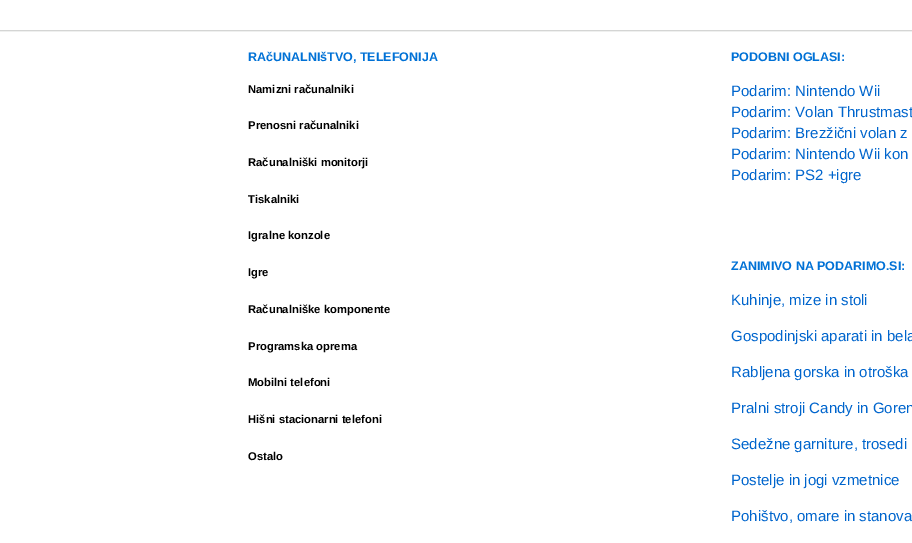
%!PS
<< /PageSize [912 543] >> setpagedevice
/co { dup -16 bitshift 255 div exch dup -8 bitshift 255 and 255 div exch 255 and 255 div setrgbcolor } def
/fn { [ exch dup neg 0 0 3 -1 roll 0 0 ] selectfont } def
/tx { co fn moveto show } def
/bx { co rectfill } def
/im { 5 dict begin { /h /w /y /x /name } { exch def } forall
  gsave x y translate w h scale
  w h 8 [w 0 0 h 0 0] name (r) file false 3 colorimage grestore end } def
0 543 translate 1 -1 scale
4 setmiterlimit
0 0 912 543 16#FFFFFF bx
(media/1.raw) 0 30 912 2 im
(RAčUNALNIšTVO, TELEFONIJA) 248 61 /LiberationSans-Bold 12.5 16#0071D6 tx
(Namizni računalniki) 248 93 /LiberationSans-Bold 11.25 16#000000 tx
(Prenosni računalniki) 248 129 /LiberationSans-Bold 11.25 16#000000 tx
(Računalniški monitorji) 248 166 /LiberationSans-Bold 11.25 16#000000 tx
(Tiskalniki) 248 203 /LiberationSans-Bold 11.25 16#000000 tx
(Igralne konzole) 248 239 /LiberationSans-Bold 11.25 16#000000 tx
(Igre) 248 276 /LiberationSans-Bold 11.25 16#000000 tx
(Računalniške komponente) 248 313 /LiberationSans-Bold 11.25 16#000000 tx
(Programska oprema) 248 350 /LiberationSans-Bold 11.25 16#000000 tx
(Mobilni telefoni) 248 386 /LiberationSans-Bold 11.25 16#000000 tx
(Hišni stacionarni telefoni) 248 423 /LiberationSans-Bold 11.25 16#000000 tx
(Ostalo) 248 460 /LiberationSans-Bold 11.25 16#000000 tx
(PODOBNI OGLASI:) 731 61 /LiberationSans-Bold 12.5 16#0071D6 tx
(Podarim: Nintendo Wii) 731 96 /LiberationSans-Regular 15 16#0065CD tx
(Podarim: Volan Thrustmast) 731 117 /LiberationSans-Regular 15 16#0065CD tx
(Podarim: Brezžični volan z) 731 138 /LiberationSans-Regular 15 16#0065CD tx
(Podarim: Nintendo Wii kon) 731 159 /LiberationSans-Regular 15 16#0065CD tx
(Podarim: PS2 +igre) 731 180 /LiberationSans-Regular 15 16#0065CD tx
(ZANIMIVO NA PODARIMO.SI:) 731 270 /LiberationSans-Bold 12.5 16#0071D6 tx
(Kuhinje, mize in stoli) 731 305 /LiberationSans-Regular 15 16#0065CD tx
(Gospodinjski aparati in bela) 731 341 /LiberationSans-Regular 15 16#0065CD tx
(Rabljena gorska in otroška) 731 377 /LiberationSans-Regular 15 16#0065CD tx
(Pralni stroji Candy in Goren) 731 413 /LiberationSans-Regular 15 16#0065CD tx
(Sedežne garniture, trosedi) 731 449 /LiberationSans-Regular 15 16#0065CD tx
(Postelje in jogi vzmetnice) 731 485 /LiberationSans-Regular 15 16#0065CD tx
(Pohištvo, omare in stanova) 731 521 /LiberationSans-Regular 15 16#0065CD tx
showpage
